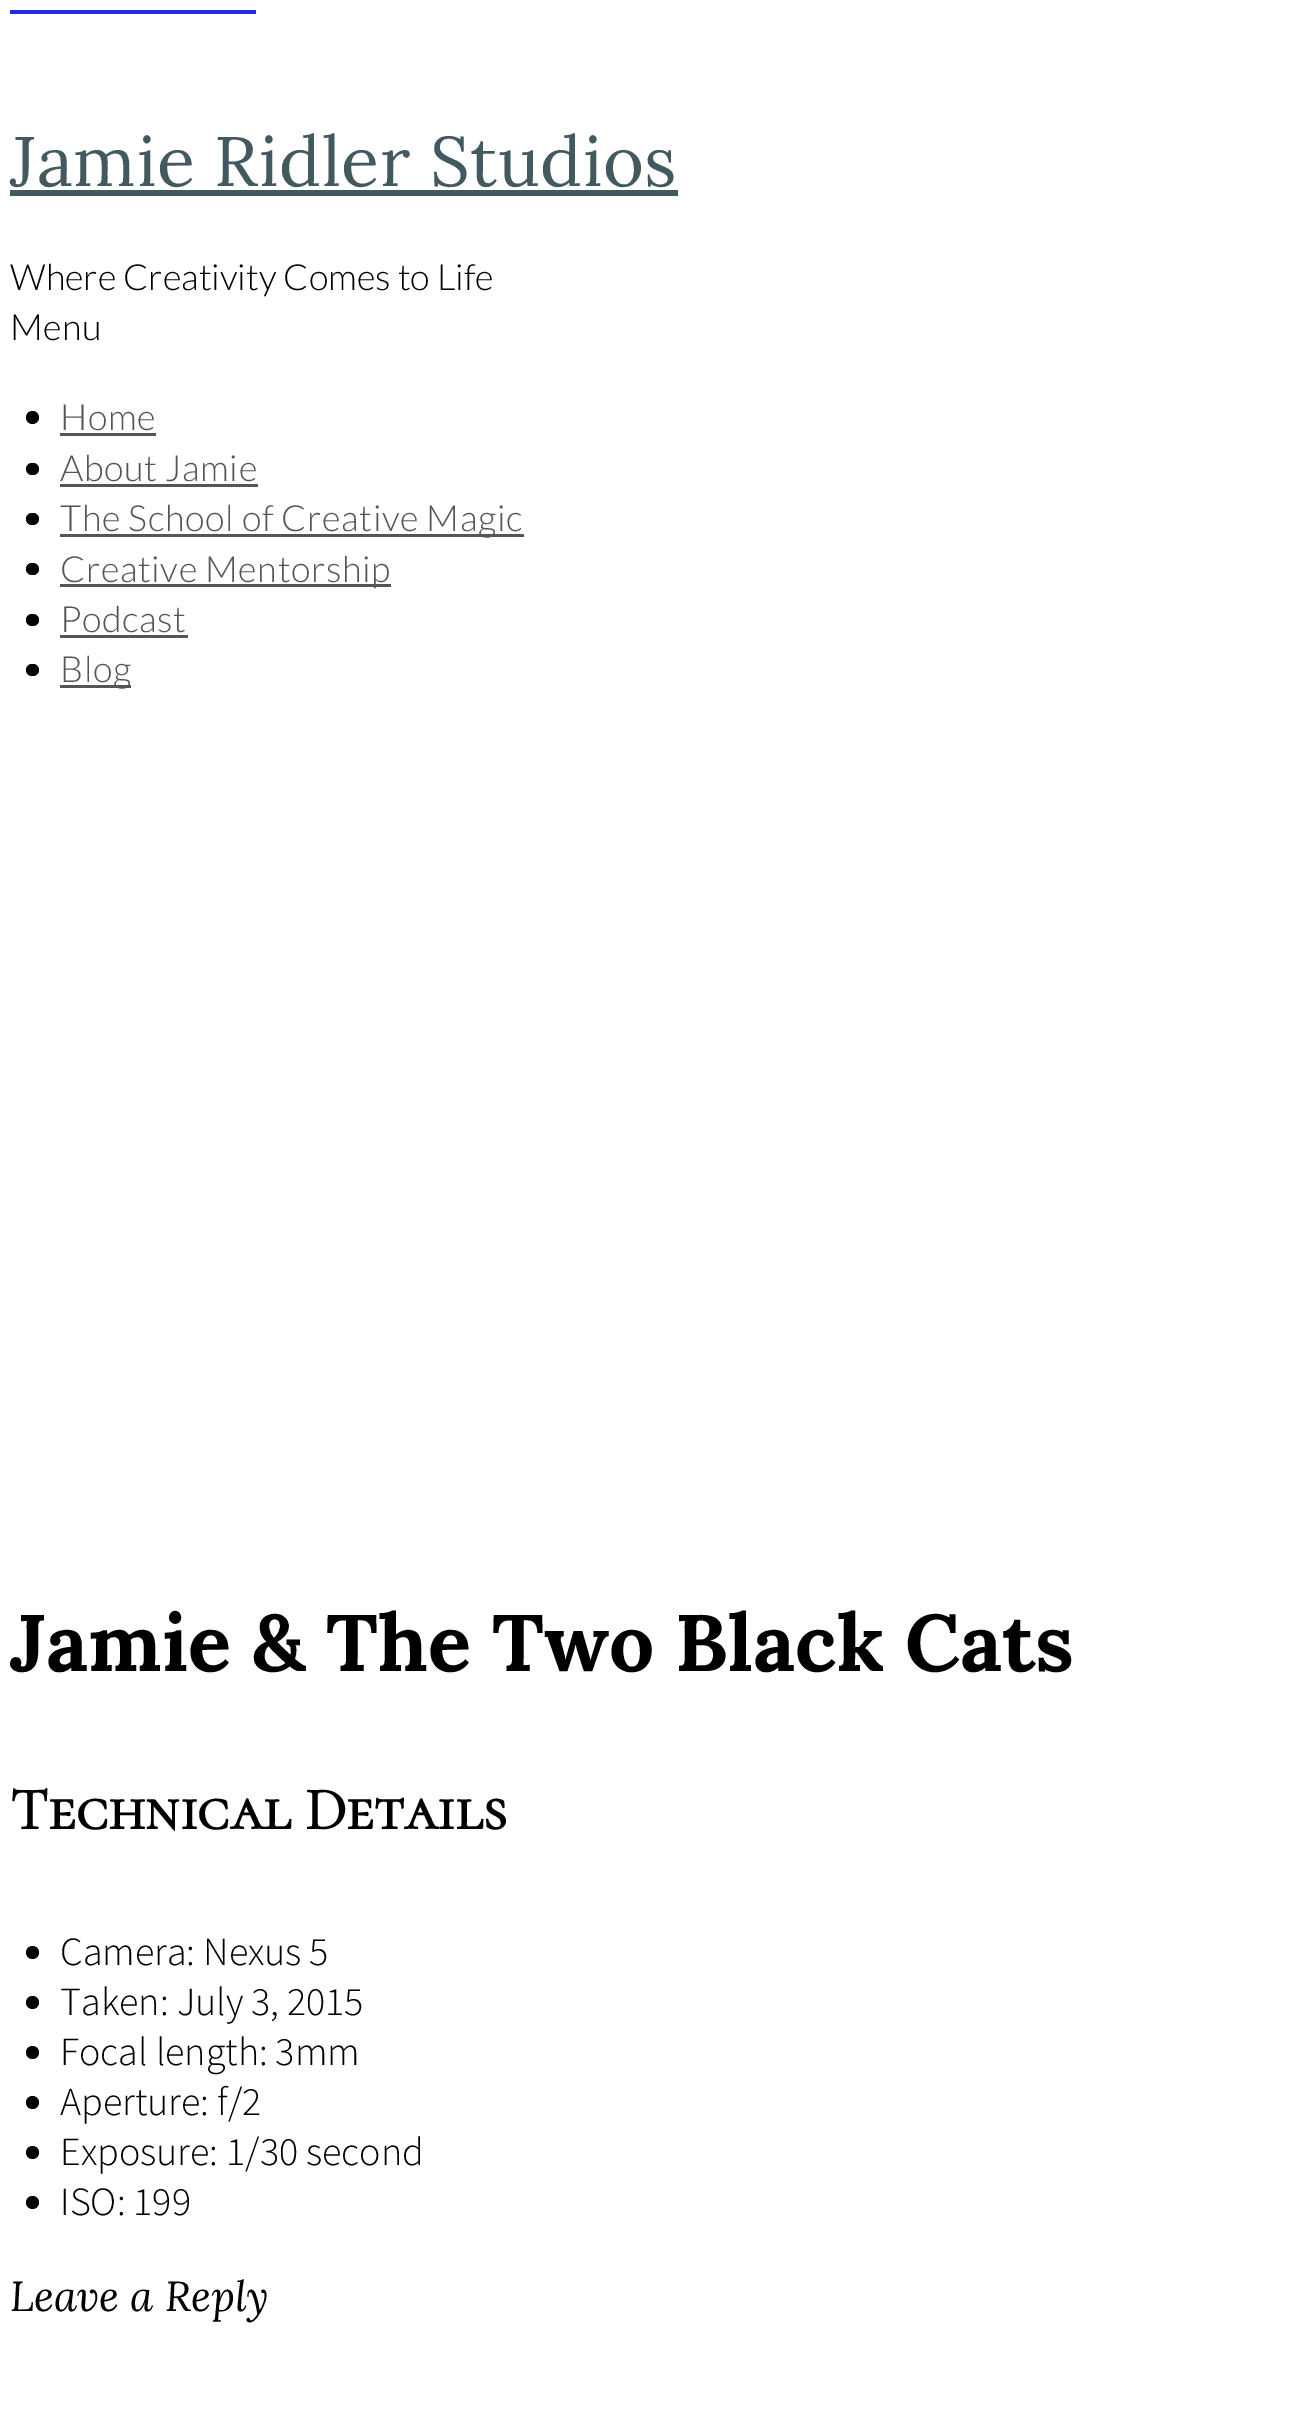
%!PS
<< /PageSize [1298 2432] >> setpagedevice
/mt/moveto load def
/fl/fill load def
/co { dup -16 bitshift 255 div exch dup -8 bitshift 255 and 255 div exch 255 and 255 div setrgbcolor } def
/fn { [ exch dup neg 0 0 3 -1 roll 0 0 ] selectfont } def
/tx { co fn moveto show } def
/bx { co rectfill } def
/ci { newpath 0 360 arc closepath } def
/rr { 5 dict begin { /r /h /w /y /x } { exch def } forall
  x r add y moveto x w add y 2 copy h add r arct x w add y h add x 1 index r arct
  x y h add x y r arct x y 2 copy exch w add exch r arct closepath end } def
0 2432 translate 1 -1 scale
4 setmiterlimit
0 0 1298 2432 16#FFFFFF bx
10 10 246 4 16#2229E8 bx
10 190 668 6 16#435960 bx
16#000000 co
32.5 417.5 6.5 ci fl
60 433 96 3 16#555555 bx
16#000000 co
26 463 13 12 6 rr fl
60 484 198 3 16#555555 bx
16#000000 co
26 513 13 12 6 rr fl
60 534 464 3 16#555555 bx
16#000000 co
26 563 13 12 6 rr fl
60 584 331 3 16#555555 bx
16#000000 co
26 614 13 12 6 rr fl
60 635 128 3 16#555555 bx
16#000000 co
26 664 13 12 6 rr fl
60 685 71 3 16#555555 bx
16#000000 co
32.5 1952.5 6.5 ci fl
32.5 2002.5 6.5 ci fl
32.5 2052.5 6.5 ci fl
32.5 2102.5 6.5 ci fl
32.5 2152.5 6.5 ci fl
32.5 2202.5 6.5 ci fl
/Lora-Regular 70 fn
16#435960 co
10 186 mt .6 0 (Jamie Ridler Studios) ashow
(Where Creativity Comes to Life) 10 290 /Lato-Light 36 16#000000 tx
10 340 mt .6 0 (Menu) ashow
16#555555 co
60 430 mt .6 0 (Home) ashow
60 481 mt .6 0 (About Jamie) ashow
60 531 mt .6 0 (The School of Creative Magic) ashow
60 582 mt .6 0 (Creative Mentorship) ashow
60 632 mt .6 0 (Podcast) ashow
60 682 mt .6 0 (Blog) ashow
(Jamie & The Two Black Cats) 10 1671 /Lora-Bold 80 16#000000 tx
(Technical Details) 10 1829 /CormorantSC-Bold 60 16#000000 tx
(Camera: Nexus 5) 60 1965 /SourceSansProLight-Light 40 16#000000 tx
(Taken: July 3, 2015) 60 2015 /SourceSansProLight-Light 40 16#000000 tx
(Focal length: 3mm) 60 2065 /SourceSansProLight-Light 40 16#000000 tx
(Aperture: f/2) 60 2115 /SourceSansProLight-Light 40 16#000000 tx
(Exposure: 1/30 second) 60 2165 /SourceSansProLight-Light 40 16#000000 tx
(ISO: 199) 60 2215 /SourceSansProLight-Light 40 16#000000 tx
(Leave a Reply) 10 2311 /Lora-Italic 42 16#000000 tx
showpage
